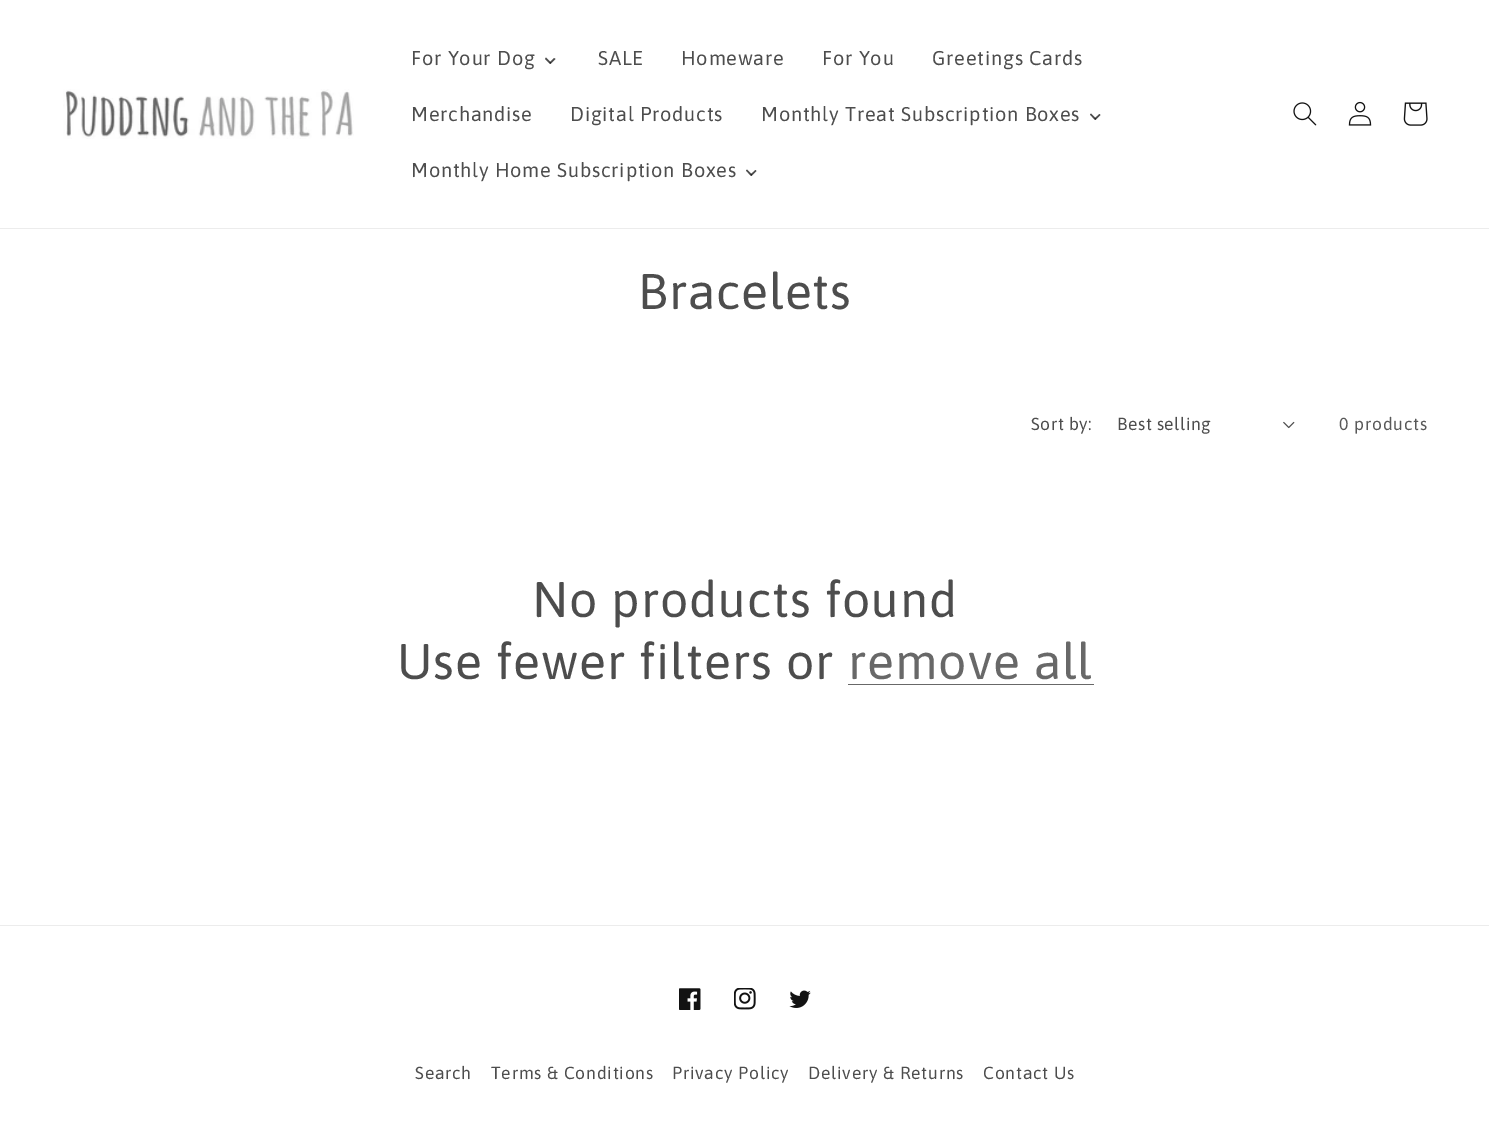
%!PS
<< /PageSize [1489 1133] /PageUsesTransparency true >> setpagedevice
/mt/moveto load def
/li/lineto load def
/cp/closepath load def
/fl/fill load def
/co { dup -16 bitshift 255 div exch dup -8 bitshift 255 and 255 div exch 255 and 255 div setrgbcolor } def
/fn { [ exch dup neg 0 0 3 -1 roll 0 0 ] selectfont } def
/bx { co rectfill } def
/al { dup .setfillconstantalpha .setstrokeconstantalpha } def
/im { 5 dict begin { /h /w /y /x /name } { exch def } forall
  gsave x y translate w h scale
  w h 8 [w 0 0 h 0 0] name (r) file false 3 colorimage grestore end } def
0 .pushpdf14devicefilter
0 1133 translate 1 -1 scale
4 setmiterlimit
0 0 1489 1133 16#FFFFFF bx
0 228 1489 1 16#ECECEC bx
(media/1.raw) 63 89 291 50 im
16#4D4D4D co
554 58 mt 555.5 59 li 550.5 64 li 549.5 62.5 li cp fl
0.75 al
16#121212 co
546 57.5 mt 551 62.5 li 550 64 li 545 59 li cp fl
1 al
16#4D4D4D co
1099.5 114 mt 1100.5 115 li 1095.5 120 li 1094.5 118.5 li cp fl
0.75 al
16#121212 co
1091 113.5 mt 1096 118.5 li 1095 120 li 1090 114.5 li cp fl
1 al
16#4D4D4D co
755.5 170 mt 756.5 171 li 751.5 176 li 750.5 174.5 li cp fl
0.75 al
16#121212 co
747 169.5 mt 752 174.5 li 751 176 li 746 170.5 li cp fl
1 al
(media/2.raw) 1293 102 24 24 im
(media/3.raw) 1348 101 24 25 im
(media/4.raw) 1403 102 25 24 im
(media/5.raw) 1283 421 12 8 im
848 684 246 1 16#686868 bx
0 925 1489 1 16#ECECEC bx
(media/6.raw) 679 988 22 22 im
(media/7.raw) 734 988 22 22 im
(media/8.raw) 789 990 22 18 im
/Asap-Regular 20 fn
16#4D4D4D co
411 65 mt .75 0 (For Your Dog) ashow
598 65 mt .75 0 (SALE) ashow
681 65 mt .75 0 (Homeware) ashow
822 65 mt .75 0 (For You) ashow
932 65 mt .75 0 (Greetings Cards) ashow
411 121 mt .75 0 (Merchandise) ashow
570 121 mt .75 0 (Digital Products) ashow
761 121 mt .75 0 (Monthly Treat Subscription Boxes) ashow
411 177 mt .75 0 (Monthly Home Subscription Boxes) ashow
/Asap-Regular 50 fn
638 309 mt .9 0 (Bracelets) ashow
/Asap-Regular 17.5 fn
1031 430 mt .5 0 (Sort by:) ashow
1117 430 mt .5 0 (Best selling) ashow
16#595959 co
1339 430 mt .75 0 (0 products) ashow
/Asap-Regular 50 fn
16#4D4D4D co
532 617 mt .9 0 (No products found) ashow
397 679 mt .9 0 (Use fewer filters or) ashow
16#686868 co
848 679 mt .9 0 (remove all) ashow
/Asap-Regular 17.5 fn
16#4D4D4D co
415 1079 mt .75 0 (Search) ashow
491 1079 mt .75 0 (Terms & Conditions) ashow
672 1079 mt .75 0 (Privacy Policy) ashow
808 1079 mt .75 0 (Delivery & Returns) ashow
983 1079 mt .75 0 (Contact Us) ashow
.poppdf14devicefilter showpage
